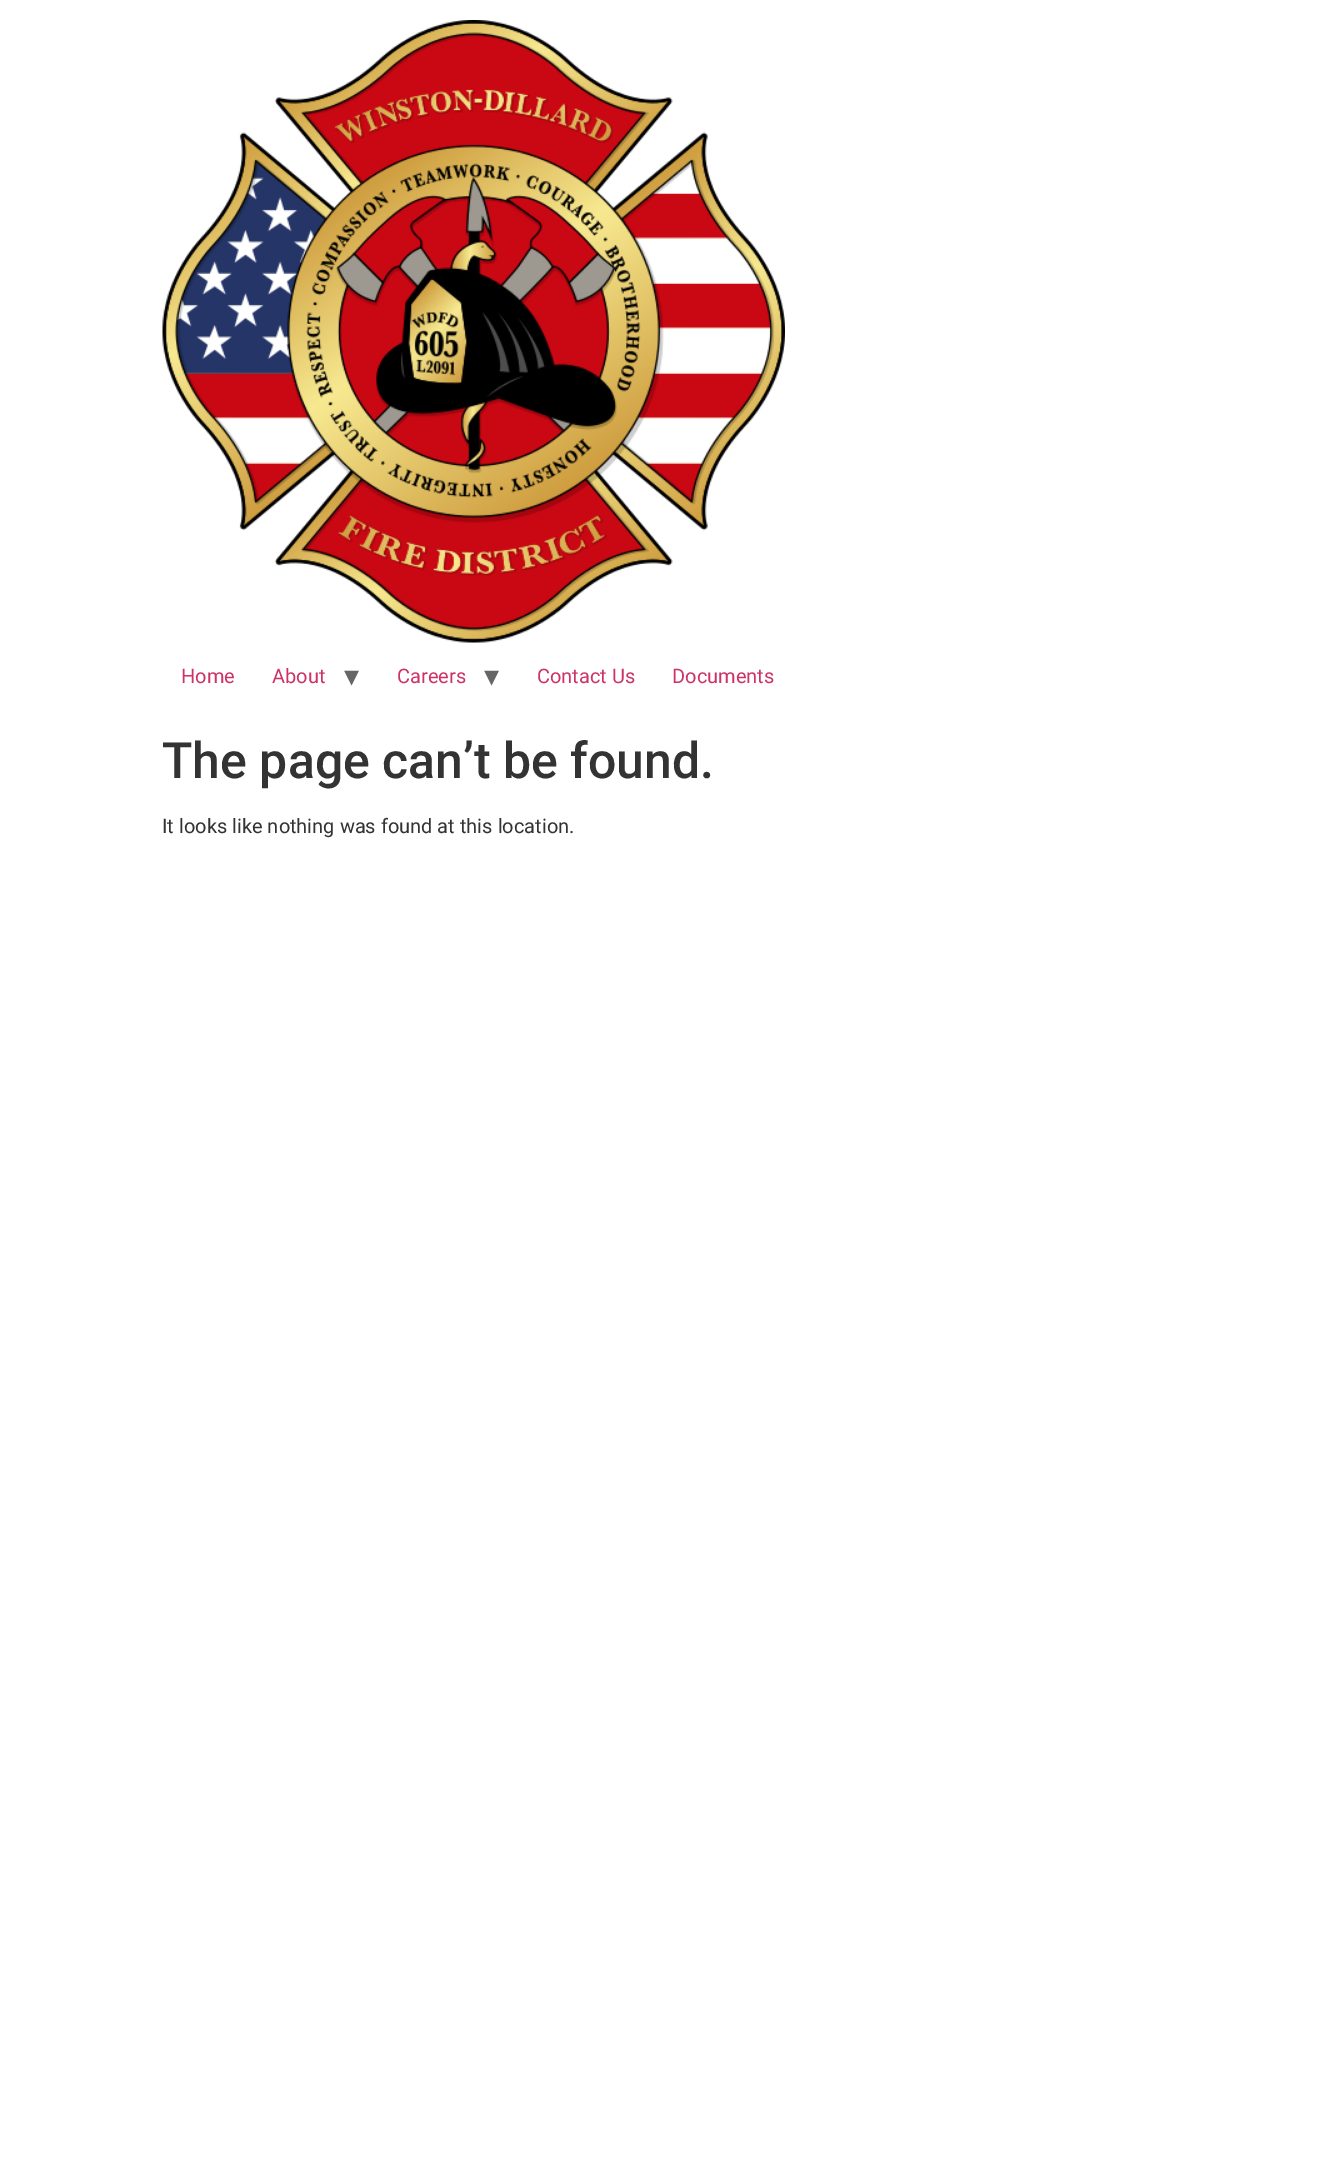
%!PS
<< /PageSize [1323 2177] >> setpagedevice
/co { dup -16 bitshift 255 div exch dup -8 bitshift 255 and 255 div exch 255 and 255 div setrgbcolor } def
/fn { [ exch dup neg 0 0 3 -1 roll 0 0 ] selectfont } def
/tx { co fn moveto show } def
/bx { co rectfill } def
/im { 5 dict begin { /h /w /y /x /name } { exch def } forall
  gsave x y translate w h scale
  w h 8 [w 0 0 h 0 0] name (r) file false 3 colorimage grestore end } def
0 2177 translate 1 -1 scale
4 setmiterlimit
0 0 1323 2177 16#FFFFFF bx
(media/1.raw) 162 20 623 623 im
(Home) 181 683 /Roboto-Regular 20 16#CC3366 tx
(About) 272 683 /Roboto-Regular 20 16#CC3366 tx
(▾) 344 686 /DejaVuSans-Regular 30 16#666666 tx
(Careers) 397 683 /Roboto-Regular 20 16#CC3366 tx
(▾) 484 686 /DejaVuSans-Regular 30 16#666666 tx
(Contact Us) 537 683 /Roboto-Regular 20 16#CC3366 tx
(Documents) 672 683 /Roboto-Regular 20 16#CC3366 tx
(The page can’t be found.) 162 778 /Roboto-Medium 50 16#333333 tx
(It looks like nothing was found at this location.) 162 833 /Roboto-Regular 20 16#333333 tx
showpage
